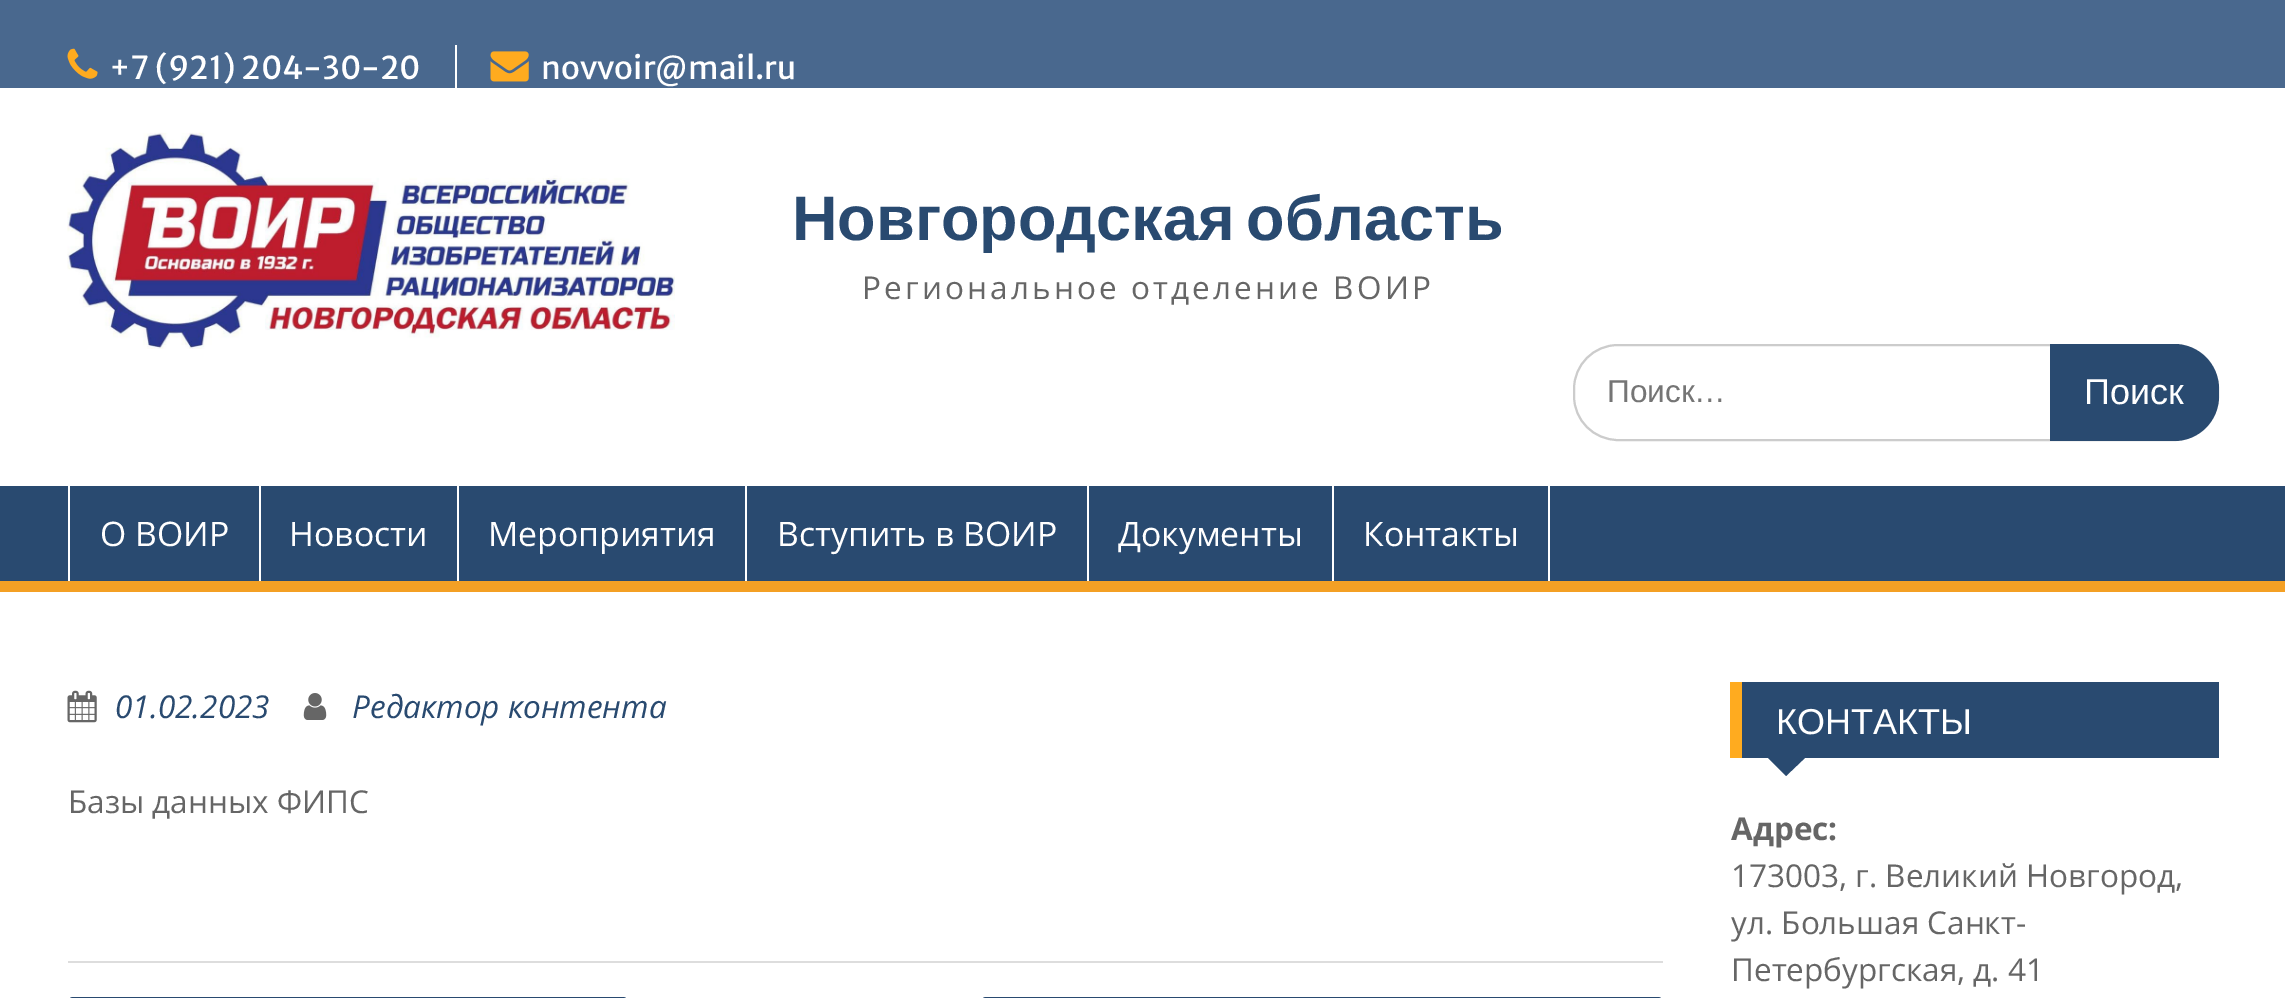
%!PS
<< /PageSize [2285 998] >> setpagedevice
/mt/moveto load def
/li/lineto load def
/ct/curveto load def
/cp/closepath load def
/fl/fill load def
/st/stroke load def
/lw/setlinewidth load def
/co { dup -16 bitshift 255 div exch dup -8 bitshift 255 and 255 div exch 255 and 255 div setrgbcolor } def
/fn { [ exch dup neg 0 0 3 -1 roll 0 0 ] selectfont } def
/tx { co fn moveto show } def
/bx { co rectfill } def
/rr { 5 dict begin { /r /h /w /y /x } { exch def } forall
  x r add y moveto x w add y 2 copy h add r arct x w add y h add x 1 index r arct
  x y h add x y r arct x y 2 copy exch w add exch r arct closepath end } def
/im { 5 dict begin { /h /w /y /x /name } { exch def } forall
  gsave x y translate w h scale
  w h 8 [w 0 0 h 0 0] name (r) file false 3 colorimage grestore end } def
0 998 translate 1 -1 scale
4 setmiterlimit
0 0 2285 998 16#FFFFFF bx
0 0 2285 88 16#49688E bx
(media/1.raw) 67 48 31 31 im
455 45 2 43 16#FFFFFF bx
(media/2.raw) 490 51 39 31 im
(media/3.raw) 67 132 608 217 im
16#CCCCCC co
2 lw
1574 345 644 95 44 rr st
16#294A70 co
2050 344 mt 2174 344 li 2199 344 2219 364 2219 389 ct 2219 396 li 2219 421 2199 441 2174 441 ct 2050 441 li cp fl
0 486 2285 95 16#294A70 bx
0 581 2285 11 16#F4A024 bx
259 486 2 95 16#FFFFFF bx
68 486 2 95 16#FFFFFF bx
457 486 2 95 16#FFFFFF bx
745 486 2 95 16#FFFFFF bx
1087 486 2 95 16#FFFFFF bx
1332 486 2 95 16#FFFFFF bx
1548 486 2 95 16#FFFFFF bx
68 961 1595 2 16#DDDDDD bx
(media/4.raw) 67 690 30 33 im
(media/5.raw) 303 693 24 27 im
16#294A70 co
68 997 560 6 5 rr fl
981 997 682 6 5 rr fl
1742 682 477 76 16#294A70 bx
1730 682 12 76 16#FFAB1F bx
16#294A70 co
1766 756 mt 1807 756 li 1786 776 li cp fl
(+7 \(921\) 204-30-20) 109 79 /MerriweatherSans-Regular 31.5 16#FFFFFF tx
(novvoir@mail.ru) 541 79 /MerriweatherSans-Regular 31.5 16#FFFFFF tx
/LiberationSans-Bold 63 fn
16#294A70 co
792 240 mt -6 0 32 (Новгородская область) widthshow
/OpenSans-Regular 31.5 fn
16#666666 co
862 299 mt 3.15 0 (Региональное отделение ВОИР) ashow
(Поиск…) 1607 402 /LiberationSans-Regular 31.5 16#757575 tx
(Поиск) 2084 404 /LiberationSans-Regular 36 16#FFFFFF tx
(О ВОИР) 100 546 /OpenSans-Regular 33.75 16#FFFFFF tx
(Новости) 289 546 /OpenSans-Regular 33.75 16#FFFFFF tx
(Мероприятия) 488 546 /OpenSans-Regular 33.75 16#FFFFFF tx
(Вступить в ВОИР) 777 546 /OpenSans-Regular 33.75 16#FFFFFF tx
(Документы) 1118 546 /OpenSans-Regular 33.75 16#FFFFFF tx
(Контакты) 1363 546 /OpenSans-Regular 33.75 16#FFFFFF tx
(01.02.2023) 115 718 /OpenSans-Italic 31.5 16#294A70 tx
(Редактор контента) 352 718 /OpenSans-Italic 31.5 16#294A70 tx
(Базы данных ФИПС) 68 813 /OpenSans-Regular 31.5 16#666666 tx
(КОНТАКТЫ) 1776 734 /LiberationSans-Regular 36 16#FFFFFF tx
(Адрес:) 1731 840 /OpenSans-Bold 31.5 16#666666 tx
(173003, г. Великий Новгород,) 1731 887 /OpenSans-Regular 31.5 16#666666 tx
(ул. Большая Санкт-) 1731 934 /OpenSans-Regular 31.5 16#666666 tx
(Петербургская, д. 41) 1731 981 /OpenSans-Regular 31.5 16#666666 tx
showpage
